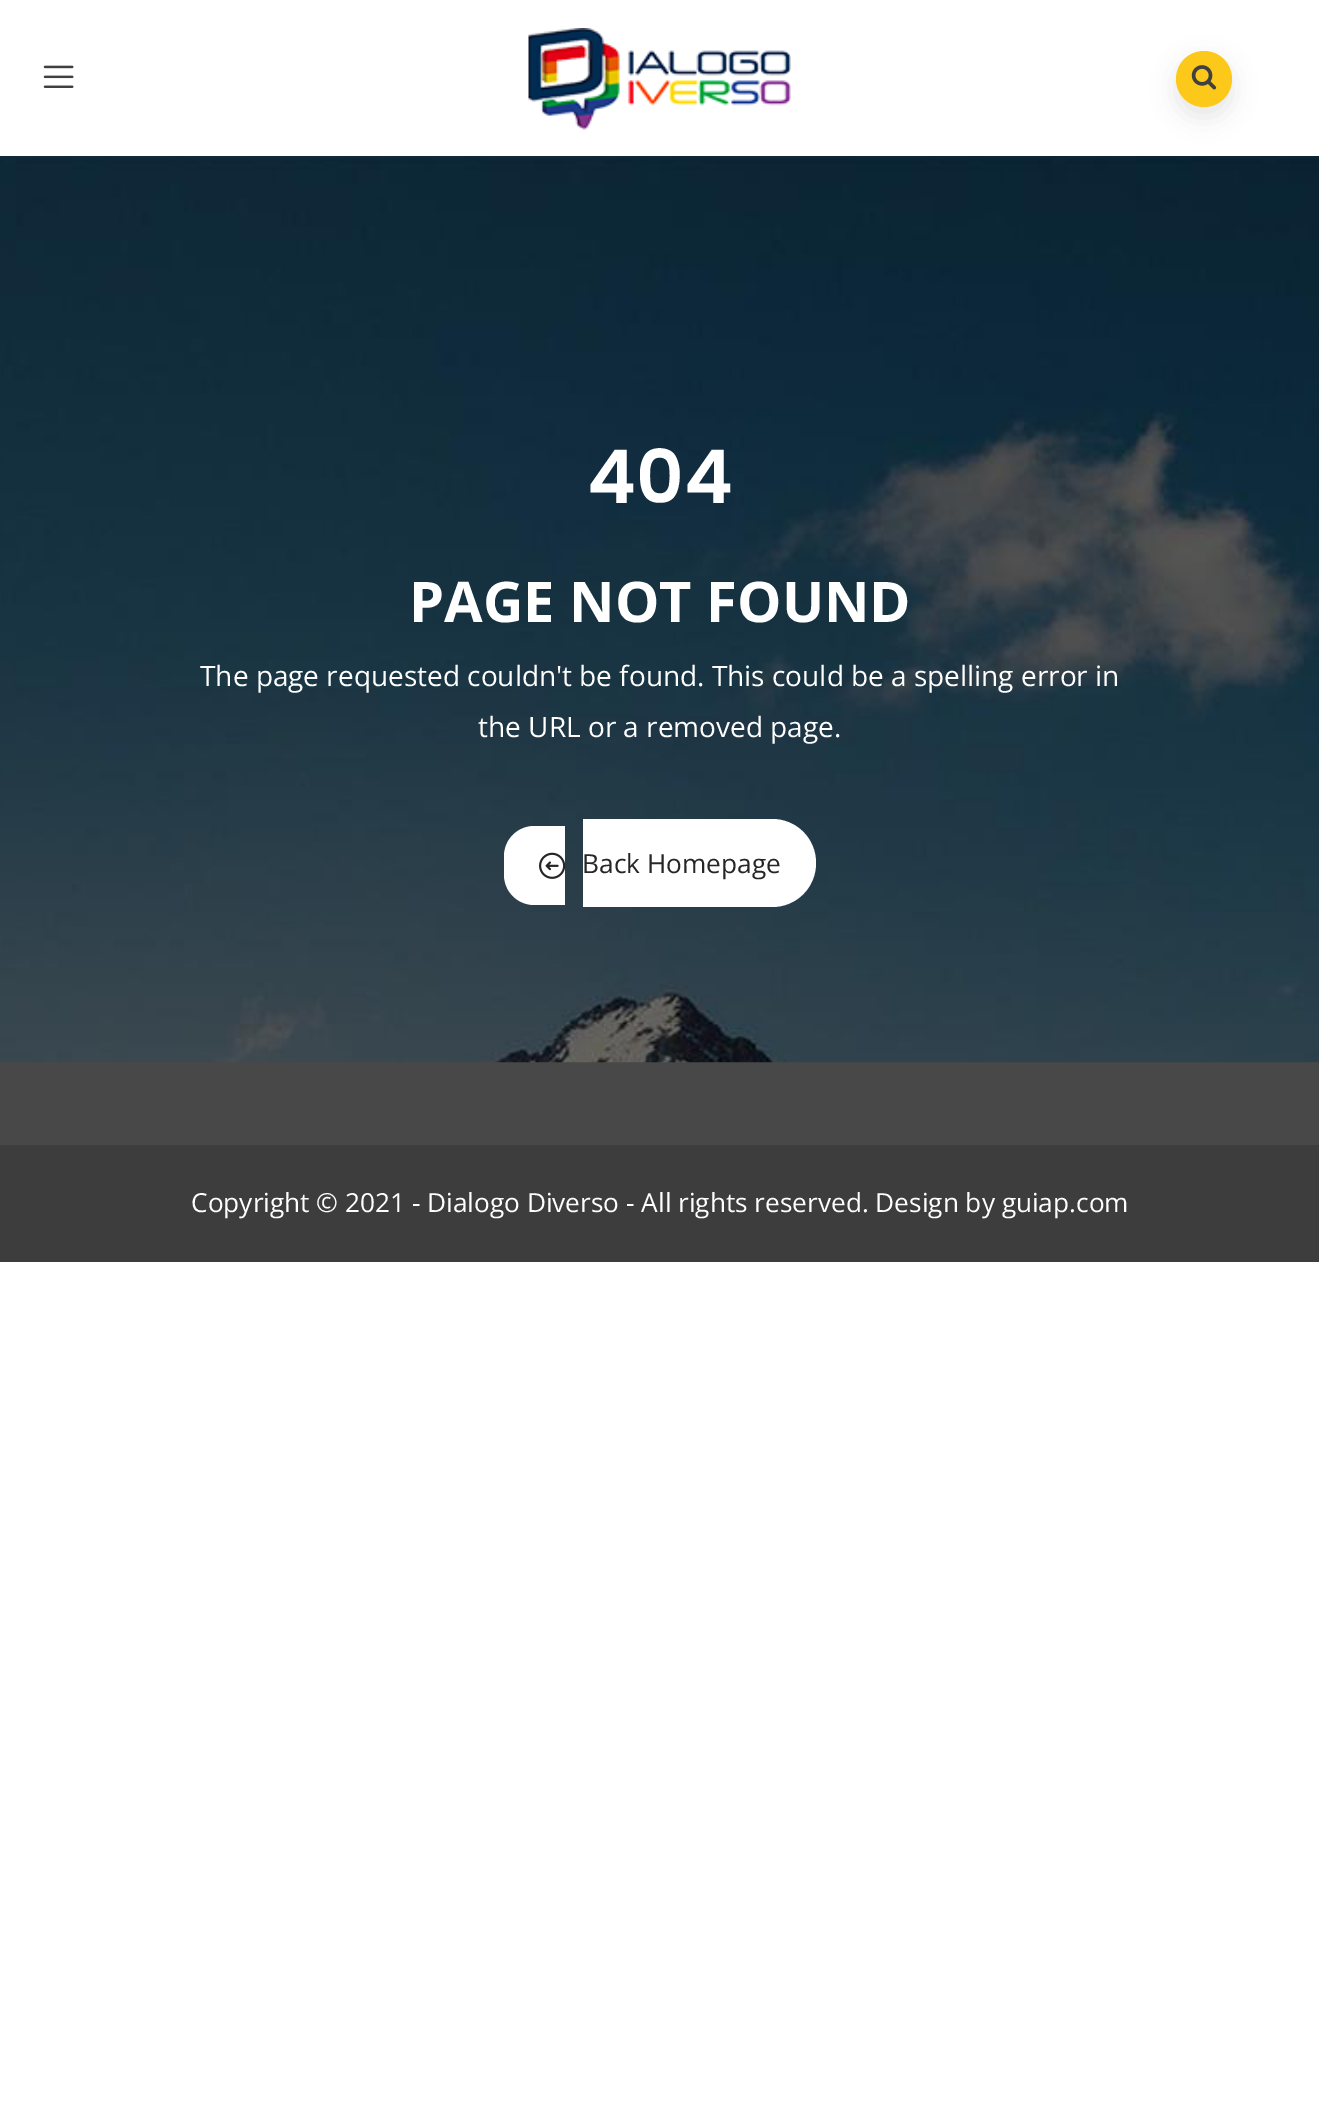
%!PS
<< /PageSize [1319 2118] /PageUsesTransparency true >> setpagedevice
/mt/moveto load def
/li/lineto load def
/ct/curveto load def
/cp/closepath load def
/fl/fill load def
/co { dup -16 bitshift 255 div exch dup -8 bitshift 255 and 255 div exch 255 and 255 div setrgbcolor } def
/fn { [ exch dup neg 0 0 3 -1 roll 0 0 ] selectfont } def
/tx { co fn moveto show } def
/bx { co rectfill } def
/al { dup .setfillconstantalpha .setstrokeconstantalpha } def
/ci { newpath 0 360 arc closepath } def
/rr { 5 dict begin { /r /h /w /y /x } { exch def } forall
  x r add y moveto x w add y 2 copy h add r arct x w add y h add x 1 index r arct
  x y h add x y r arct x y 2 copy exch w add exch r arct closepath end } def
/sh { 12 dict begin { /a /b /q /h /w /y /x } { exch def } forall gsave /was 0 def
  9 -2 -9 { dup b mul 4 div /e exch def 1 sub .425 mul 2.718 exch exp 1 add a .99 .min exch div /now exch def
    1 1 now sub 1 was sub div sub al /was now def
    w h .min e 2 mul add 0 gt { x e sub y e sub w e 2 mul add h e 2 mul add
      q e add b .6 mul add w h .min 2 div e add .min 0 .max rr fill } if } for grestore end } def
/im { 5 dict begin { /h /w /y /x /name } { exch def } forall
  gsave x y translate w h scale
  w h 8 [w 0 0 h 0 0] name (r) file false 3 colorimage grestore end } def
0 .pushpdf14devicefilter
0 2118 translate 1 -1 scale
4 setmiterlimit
0 0 1319 2118 16#FFFFFF bx
(media/1.raw) 43 65 31 23 im
(media/2.raw) 528 28 263 102 im
16#000000 co
1176 61 56 56 28 12 .1 sh
16#FCC91B co
1204 79 28 ci fl
(media/3.raw) 1191 65 26 25 im
0 1062 1319 83 16#484848 bx
(media/4.raw) 0 156 1319 907 im
16#FFFFFF co
534.5 826 mt 565 826 li 565 905 li 534.5 905 li 517.5 905 504 891.5 504 874.5 ct 504 856.5 li 504 839.5 517.5 826 534.5 826 ct cp fl
(media/5.raw) 539 852 27 27 im
583 819 mt 772 819 li 796.5 819 816 838.5 816 863 ct 816 887.5 796.5 907 772 907 ct 583 907 li cp fl
0 1145 1319 117 16#3E3D3D bx
(404) 587 503 /Poppins-SemiBold 74 16#FFFFFF tx
(PAGE NOT FOUND) 409 622 /OpenSans-Bold 56 16#FFFFFF tx
(The page requested couldn't be found. This could be a spelling error in) 200 686 /OpenSans-Regular 28 16#FFFFFF tx
(the URL or a removed page.) 478 737 /OpenSans-Regular 28 16#FFFFFF tx
(Back Homepage) 582 873 /OpenSans-Regular 26.25 16#262626 tx
(Copyright © 2021 - Dialogo Diverso - All rights reserved. Design by guiap.com) 191 1212 /OpenSans-Regular 26.25 16#FFFFFF tx
.poppdf14devicefilter showpage
